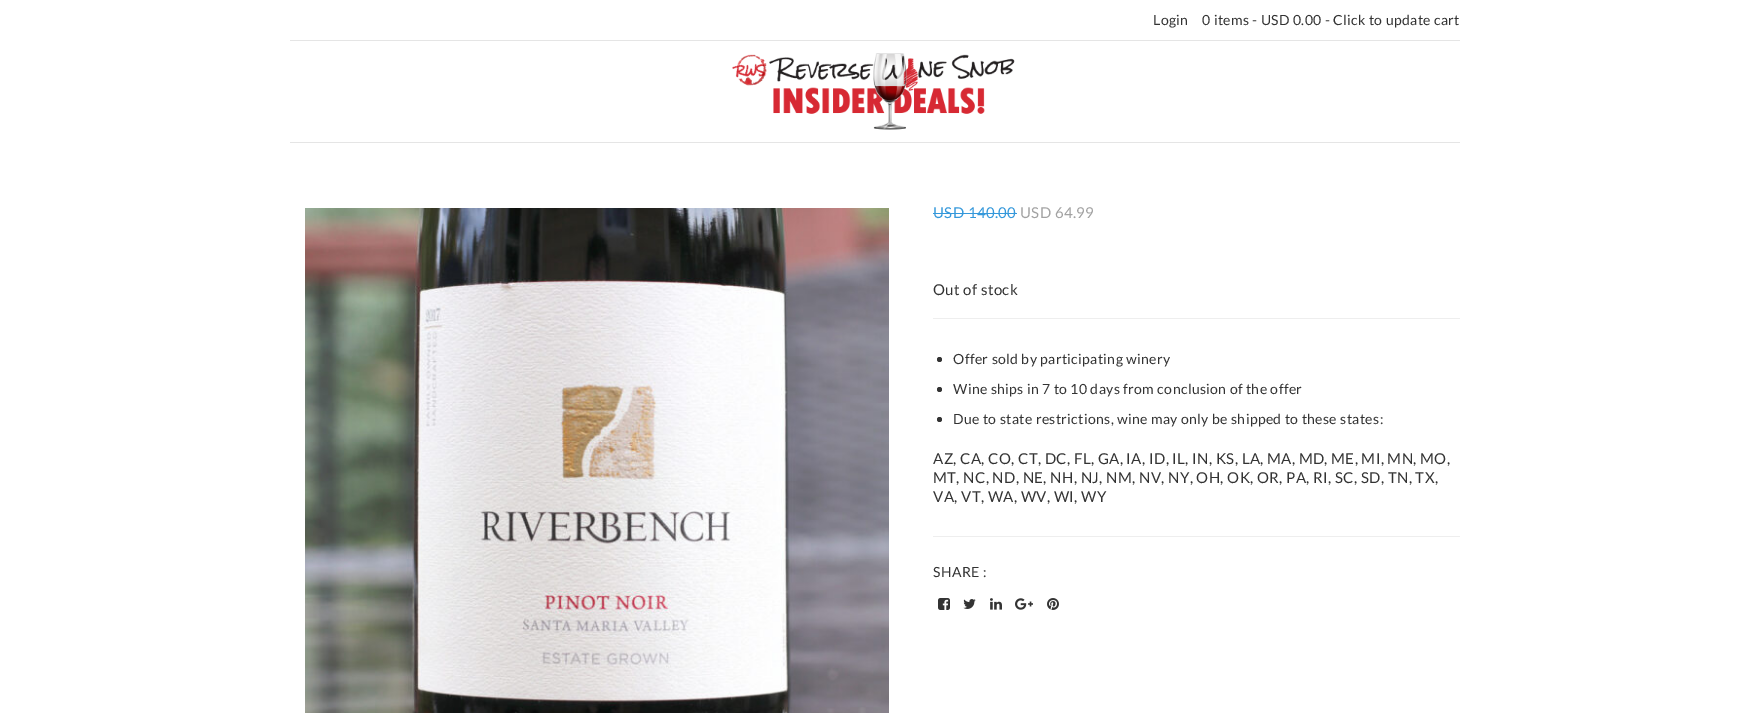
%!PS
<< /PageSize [1749 713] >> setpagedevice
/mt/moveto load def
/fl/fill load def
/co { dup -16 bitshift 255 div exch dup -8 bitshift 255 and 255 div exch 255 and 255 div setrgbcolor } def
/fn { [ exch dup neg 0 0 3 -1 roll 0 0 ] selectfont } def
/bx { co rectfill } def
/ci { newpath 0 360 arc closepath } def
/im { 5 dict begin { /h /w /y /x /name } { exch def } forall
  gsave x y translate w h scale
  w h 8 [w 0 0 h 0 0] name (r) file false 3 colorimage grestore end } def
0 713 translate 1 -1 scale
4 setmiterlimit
0 0 1749 713 16#FFFFFF bx
290 40 1170 1 16#E5E5E5 bx
290 142 1170 1 16#E5E5E5 bx
(media/1.raw) 732 53 283 77 im
(media/2.raw) 305 208 584 505 im
933 213 84 1 16#3498DB bx
933 318 527 1 16#EEEEEE bx
16#333333 co
939.5 359.5 2.5 ci fl
939.5 389.5 2.5 ci fl
939.5 419.5 2.5 ci fl
933 536 527 1 16#EEEEEE bx
(media/3.raw) 938 598 12 12 im
(media/4.raw) 963 599 13 10 im
(media/5.raw) 990 598 12 12 im
(media/6.raw) 1015 598 18 12 im
(media/7.raw) 1047 598 12 12 im
/Lato-Regular 14 fn
16#333333 co
1153 25 mt .38 0 (Login) ashow
1202 25 mt .38 0 (0 items - USD 0.00 - Click to update cart) ashow
/Lato-Regular 15 fn
16#3498DB co
933 218 mt .38 0 (USD 140.00) ashow
16#A2A2A2 co
1020 218 mt .38 0 (USD 64.99) ashow
16#333333 co
933 295 mt .38 0 (Out of stock) ashow
/Lato-Regular 14 fn
953 364 mt .38 0 (Offer sold by participating winery) ashow
953 394 mt .38 0 (Wine ships in 7 to 10 days from conclusion of the offer) ashow
953 424 mt .38 0 (Due to state restrictions, wine may only be shipped to these states:) ashow
/Lato-Regular 15 fn
933 464 mt .38 0 (AZ, CA, CO, CT, DC, FL, GA, IA, ID, IL, IN, KS, LA, MA, MD, ME, MI, MN, MO,) ashow
933 483 mt .38 0 (MT, NC, ND, NE, NH, NJ, NM, NV, NY, OH, OK, OR, PA, RI, SC, SD, TN, TX,) ashow
933 502 mt .38 0 (VA, VT, WA, WV, WI, WY) ashow
/Lato-Regular 14 fn
933 577 mt .38 0 (SHARE :) ashow
showpage
